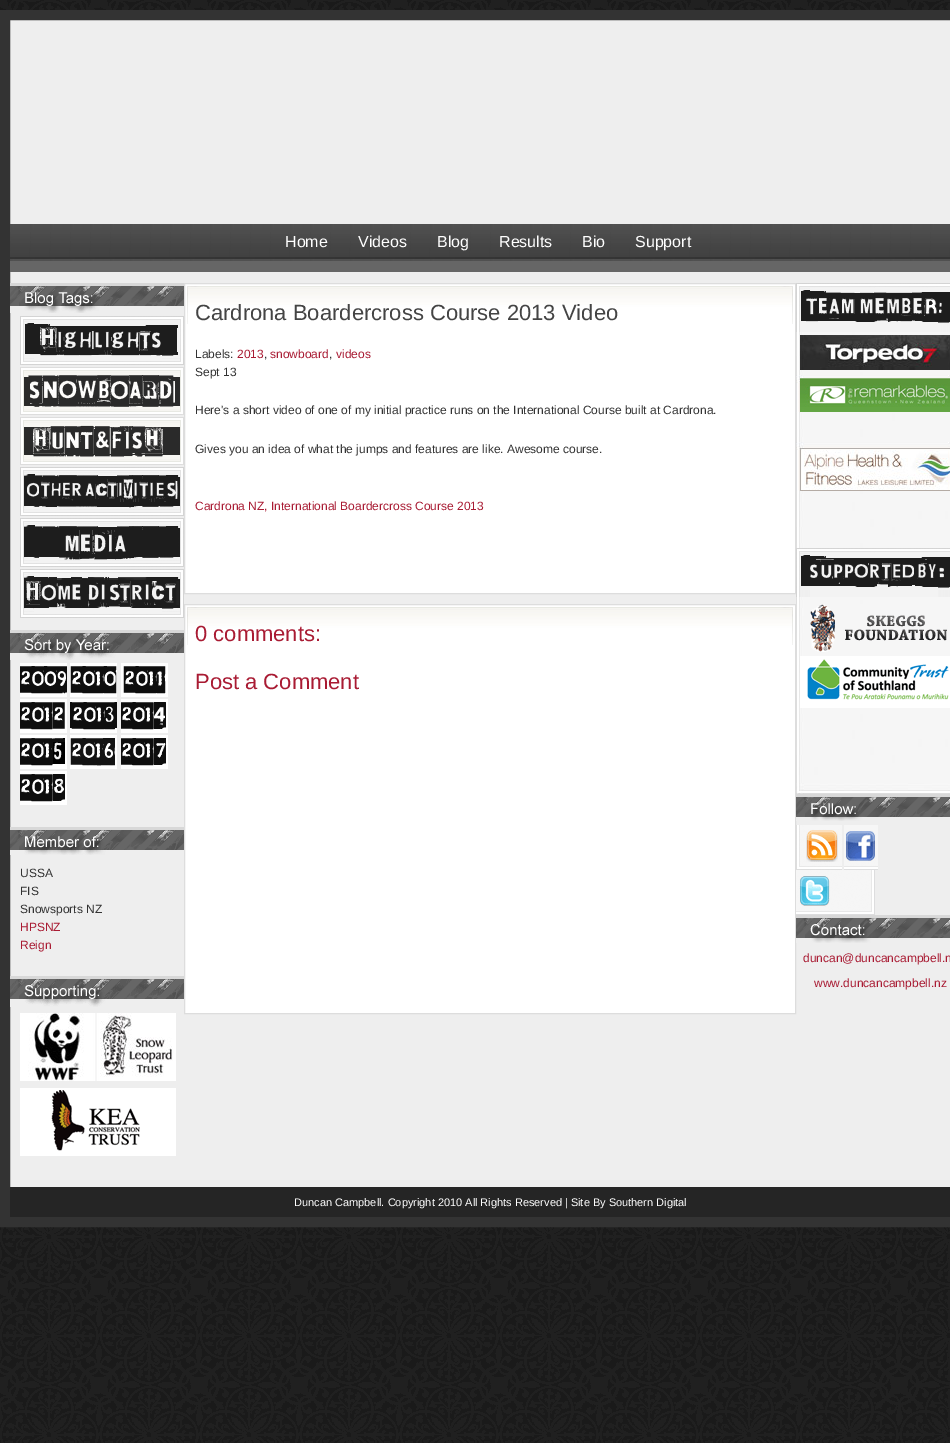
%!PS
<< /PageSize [950 1443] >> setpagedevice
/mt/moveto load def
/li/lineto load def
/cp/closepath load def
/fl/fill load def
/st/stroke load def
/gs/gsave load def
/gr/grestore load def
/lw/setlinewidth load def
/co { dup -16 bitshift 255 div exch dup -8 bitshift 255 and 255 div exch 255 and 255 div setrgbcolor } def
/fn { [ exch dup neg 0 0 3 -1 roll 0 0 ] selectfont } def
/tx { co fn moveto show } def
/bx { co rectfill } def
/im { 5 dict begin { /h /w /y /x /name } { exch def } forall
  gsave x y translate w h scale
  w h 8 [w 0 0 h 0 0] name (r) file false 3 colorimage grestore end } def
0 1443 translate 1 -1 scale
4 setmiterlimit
0 0 950 1443 16#FFFFFF bx
(media/1.raw) 0 0 950 1443 im
16#EEEEEE co
5 15 mt 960 15 li 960 1222 li 5 1222 li cp gs fl gr
16#333333 co
10 lw
st
(media/2.raw) 10 224 940 37 im
10 261 940 11 16#666666 bx
(media/3.raw) 10 283 174 30 im
(media/4.raw) 20 316 164 49 im
(media/5.raw) 20 367 164 48 im
(media/6.raw) 20 417 164 48 im
(media/7.raw) 20 467 164 49 im
(media/8.raw) 20 518 164 49 im
(media/9.raw) 20 569 164 49 im
(media/10.raw) 10 630 174 30 im
(media/11.raw) 20 663 47 34 im
(media/12.raw) 70 663 47 34 im
(media/13.raw) 121 663 47 34 im
(media/14.raw) 20 699 47 34 im
(media/15.raw) 70 699 47 34 im
(media/16.raw) 121 699 47 34 im
(media/17.raw) 20 735 47 34 im
(media/18.raw) 70 735 47 34 im
(media/19.raw) 121 735 47 34 im
(media/20.raw) 20 771 47 34 im
(media/21.raw) 10 827 174 28 im
(media/22.raw) 10 976 174 31 im
(media/23.raw) 20 1013 156 68 im
(media/24.raw) 20 1088 156 68 im
185 284 610 309 16#FFFFFF bx
(media/25.raw) 187 286 606 38 im
16#DDDDDD co
1 lw
184.5 283.5 611 310 rectstroke
185 605 610 408 16#FFFFFF bx
(media/25.raw) 187 607 606 38 im
16#DDDDDD co
184.5 604.5 611 409 rectstroke
(media/26.raw) 796 332 154 435 im
(media/27.raw) 796 283 154 49 im
(media/28.raw) 800 335 150 35 im
(media/29.raw) 796 375 154 37 im
(media/30.raw) 796 442 154 49 im
(media/31.raw) 796 548 154 49 im
(media/32.raw) 810 604 137 48 im
(media/33.raw) 800 656 150 52 im
(media/34.raw) 796 767 154 27 im
(media/35.raw) 796 794 154 27 im
(media/36.raw) 796 825 46 45 im
(media/37.raw) 844 825 34 45 im
(media/38.raw) 796 870 79 45 im
(media/39.raw) 796 915 154 28 im
10 1187 940 30 16#252525 bx
(Home) 285 247 /LiberationSans-Regular 16 16#FFFFFF tx
(Videos) 358 247 /LiberationSans-Regular 16 16#FFFFFF tx
(Blog) 437 247 /LiberationSans-Regular 16 16#FFFFFF tx
(Results) 499 247 /LiberationSans-Regular 16 16#FFFFFF tx
(Bio) 582 247 /LiberationSans-Regular 16 16#FFFFFF tx
(Support) 635 247 /LiberationSans-Regular 16 16#FFFFFF tx
(USSA) 20 877 /LiberationSans-Regular 12 16#333333 tx
(FIS) 20 895 /LiberationSans-Regular 12 16#333333 tx
(Snowsports NZ) 20 913 /LiberationSans-Regular 12 16#333333 tx
(HPSNZ) 20 931 /LiberationSans-Regular 12 16#A91B33 tx
(Reign) 20 949 /LiberationSans-Regular 12 16#A91B33 tx
(Cardrona Boardercross Course 2013 Video) 195 320 /LiberationSans-Regular 22 16#444444 tx
(Labels:) 195 358 /LiberationSans-Regular 12 16#333333 tx
(2013) 237 358 /LiberationSans-Regular 12 16#A91B33 tx
(,) 264 358 /LiberationSans-Regular 12 16#333333 tx
(snowboard) 270 358 /LiberationSans-Regular 12 16#A91B33 tx
(,) 329 358 /LiberationSans-Regular 12 16#333333 tx
(videos) 336 358 /LiberationSans-Regular 12 16#A91B33 tx
(Sept 13) 195 376 /LiberationSans-Regular 12 16#333333 tx
(Here's a short video of one of my initial practice runs on the International Course built at Cardrona.) 195 414 /LiberationSans-Regular 12 16#333333 tx
(Gives you an idea of what the jumps and features are like. Awesome course.) 195 453 /LiberationSans-Regular 12 16#333333 tx
(Cardrona NZ, International Boardercross Course 2013) 195 510 /LiberationSans-Regular 12 16#A91B33 tx
(0 comments:) 195 641 /LiberationSans-Regular 22 16#A91B33 tx
(Post a Comment) 195 689 /LiberationSans-Regular 22 16#A91B33 tx
(duncan@duncancampbell.n) 803 962 /LiberationSans-Regular 12 16#A91B33 tx
(www.duncancampbell.nz) 814 987 /LiberationSans-Regular 12 16#A91B33 tx
(Duncan Campbell. Copyright 2010 All Rights Reserved | Site By Southern Digital) 294 1206 /LiberationSans-Regular 11 16#FFFFFF tx
showpage
